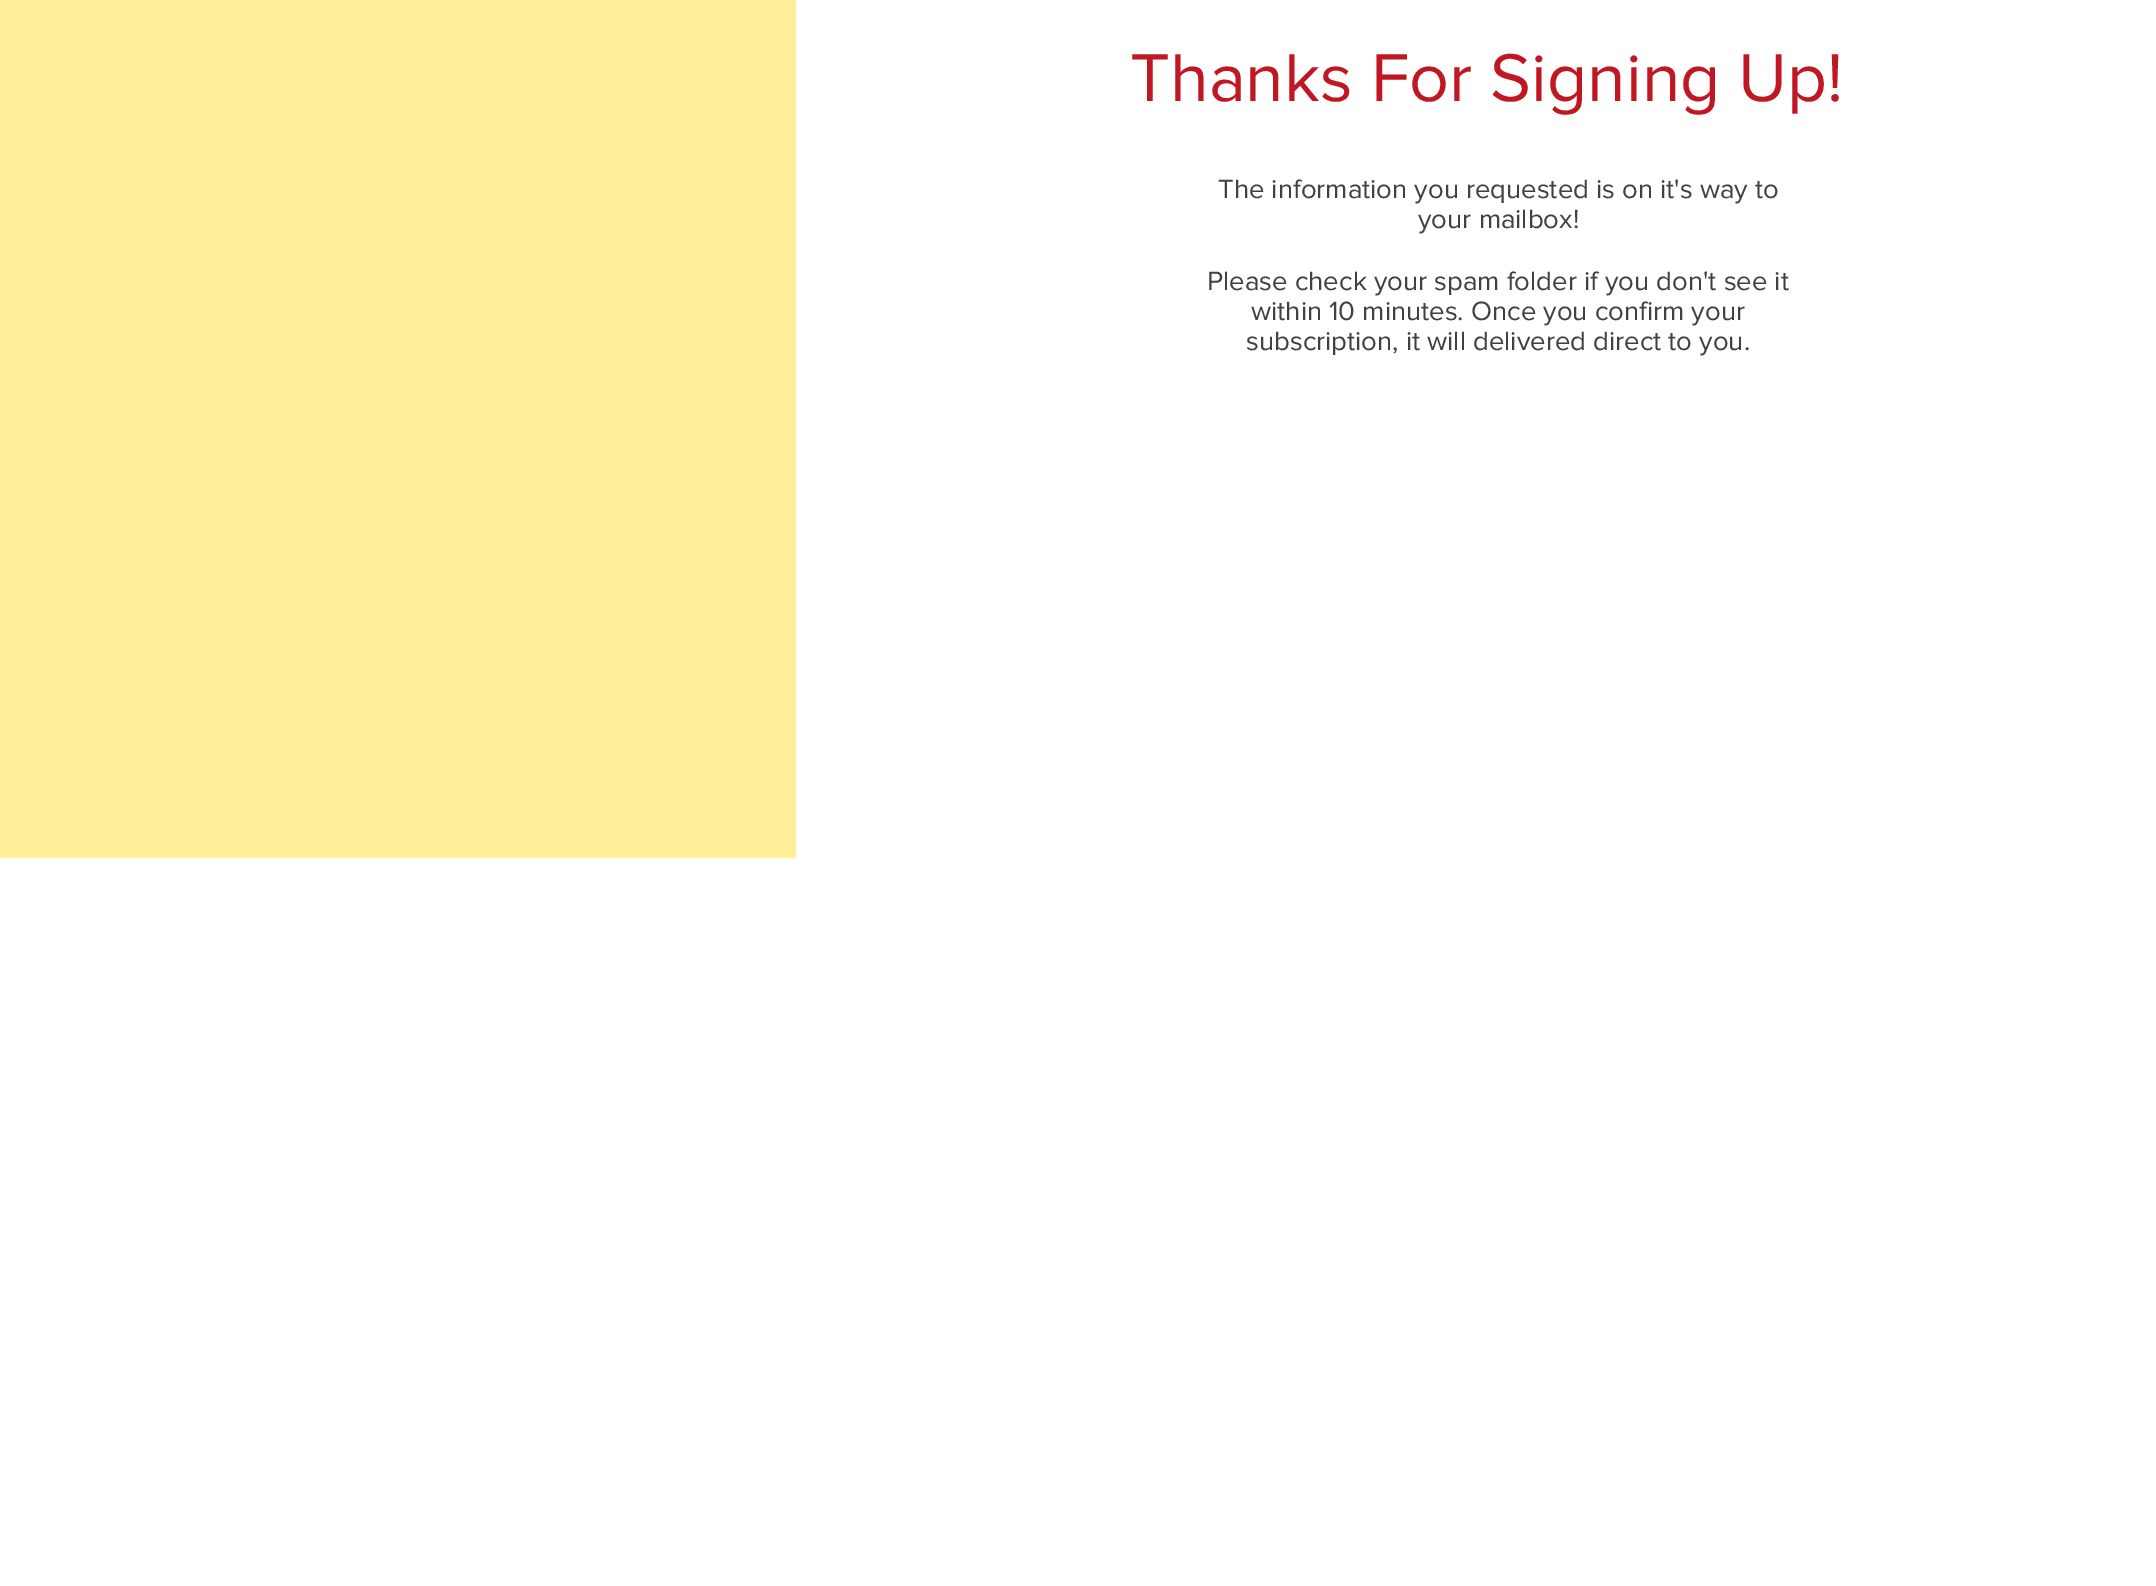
%!PS
<< /PageSize [2156 1586] >> setpagedevice
/co { dup -16 bitshift 255 div exch dup -8 bitshift 255 and 255 div exch 255 and 255 div setrgbcolor } def
/fn { [ exch dup neg 0 0 3 -1 roll 0 0 ] selectfont } def
/tx { co fn moveto show } def
/bx { co rectfill } def
0 1586 translate 1 -1 scale
4 setmiterlimit
0 0 2156 1586 16#FFFFFF bx
0 0 796 858 16#FFEF98 bx
(Thanks For Signing Up!) 1130 101 /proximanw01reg-Regular 70 16#C01823 tx
(The information you requested is on it's way to) 1218 198 /proximanw01reg-Regular 27.5 16#414141 tx
(your mailbox!) 1418 228 /proximanw01reg-Regular 27.5 16#414141 tx
(Please check your spam folder if you don't see it) 1207 290 /proximanw01reg-Regular 27.5 16#414141 tx
(within 10 minutes. Once you confirm your) 1251 320 /proximanw01reg-Regular 27.5 16#414141 tx
(subscription, it will delivered direct to you.) 1246 350 /proximanw01reg-Regular 27.5 16#414141 tx
showpage
